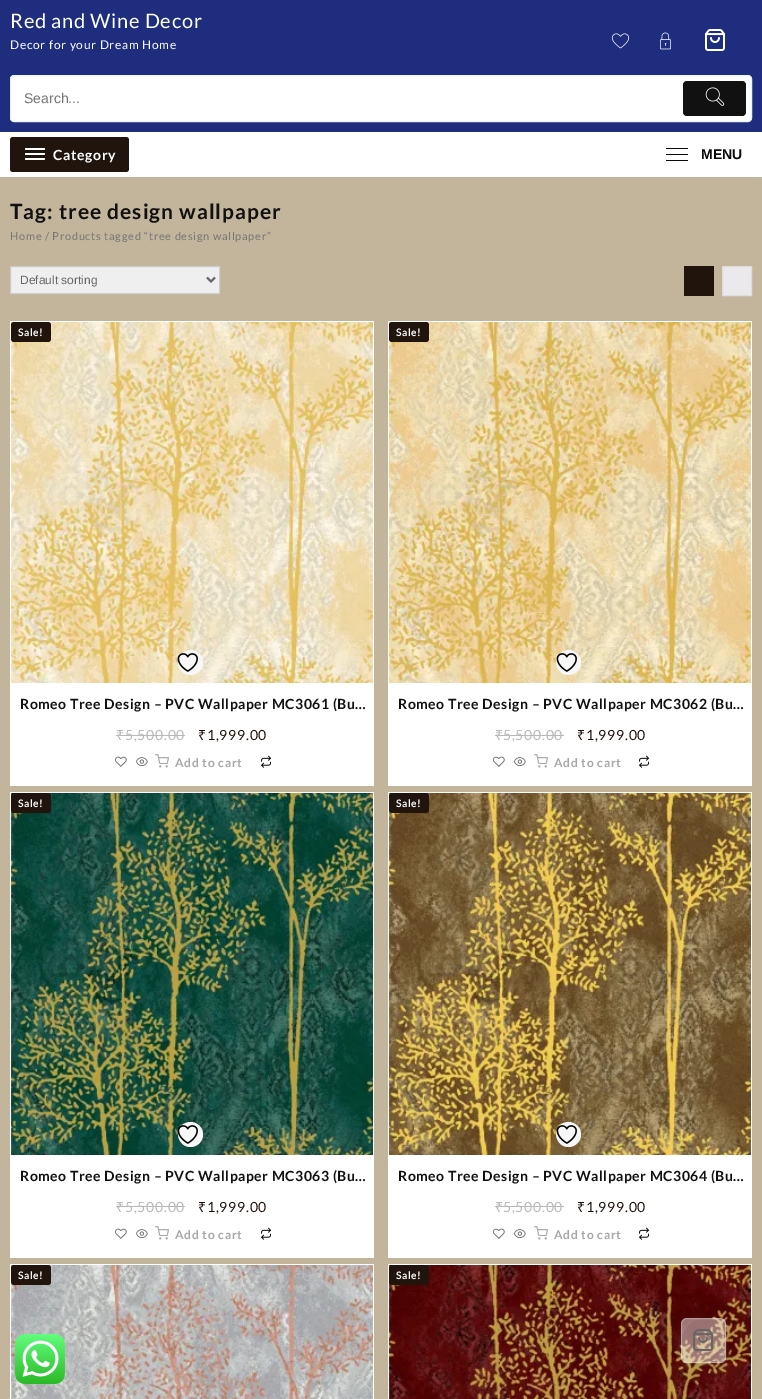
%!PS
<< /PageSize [762 1399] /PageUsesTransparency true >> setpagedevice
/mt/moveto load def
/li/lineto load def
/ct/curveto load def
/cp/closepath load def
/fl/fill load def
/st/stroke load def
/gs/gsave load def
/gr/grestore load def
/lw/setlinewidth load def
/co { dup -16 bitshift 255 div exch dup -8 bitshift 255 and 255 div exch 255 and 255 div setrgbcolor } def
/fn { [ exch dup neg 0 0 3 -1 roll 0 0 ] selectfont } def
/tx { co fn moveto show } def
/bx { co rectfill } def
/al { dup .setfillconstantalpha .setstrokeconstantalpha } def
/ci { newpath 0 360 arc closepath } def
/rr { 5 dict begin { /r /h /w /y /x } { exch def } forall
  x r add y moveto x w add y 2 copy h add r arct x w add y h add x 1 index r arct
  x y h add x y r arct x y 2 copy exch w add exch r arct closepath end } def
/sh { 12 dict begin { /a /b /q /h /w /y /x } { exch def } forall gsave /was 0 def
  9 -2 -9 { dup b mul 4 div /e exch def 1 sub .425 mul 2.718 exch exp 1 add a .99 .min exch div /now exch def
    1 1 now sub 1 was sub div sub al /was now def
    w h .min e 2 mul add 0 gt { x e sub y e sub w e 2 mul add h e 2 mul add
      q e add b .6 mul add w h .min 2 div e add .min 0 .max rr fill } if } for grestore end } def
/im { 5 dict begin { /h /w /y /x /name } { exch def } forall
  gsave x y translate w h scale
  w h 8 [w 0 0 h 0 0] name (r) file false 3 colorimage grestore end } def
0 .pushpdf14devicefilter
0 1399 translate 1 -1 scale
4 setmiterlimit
0 0 762 1399 16#C3B59B bx
0 0 762 132 16#1E2D7D bx
(media/1.raw) 611 33 19 16 im
(media/2.raw) 660 32 11 18 im
(media/3.raw) 705 29 20 22 im
16#FFFFFF co
10.5 75.5 741 46 3.5 rr gs fl gr
16#E7F5FF co
st
16#111111 co
683 81 63 35 4 rr fl
(media/4.raw) 705 87 20 19 im
0 132 762 45 16#FFFFFF bx
16#21140C co
10 137 119 35 3 rr fl
16#FFFFFF co
25 148 20 2 1 rr fl
25 153 20 2 1 rr fl
25 158 20 2 1 rr fl
16#090909 co
666 148 22 1 .5 rr fl
666 154 22 1 .5 rr fl
666 160 22 1 .5 rr fl
16#EFEFEF co
10.5 266.5 mt 219.5 266.5 li 219.5 293.5 li 10.5 293.5 li cp gs fl gr
16#CCCCCC co
st
16#666666 co
2 lw
207 277.5 mt 211 281.5 li 215 277.5 li st
684 266 30 30 16#21140C bx
16#EBE9EB co
722.5 266.5 mt 751.5 266.5 li 751.5 295.5 li 722.5 295.5 li cp gs fl gr
16#DDDDDD co
1 lw
st
10 321 364 465 16#FFFFFF bx
(media/5.raw) 11 322 362 361 im
16#21140C co
11 322 40 20 3 rr fl
16#F7F7F7 co
190.5 662.5 12.5 ci fl
(media/6.raw) 177 653 21 19 im
116 735 9 1 16#B8B8B8 bx
125 735 60 1 16#B8B8B8 bx
(media/7.raw) 115 756 12 11 im
(media/8.raw) 136 757 12 10 im
(media/9.raw) 155 754 14 14 im
(media/10.raw) 261 755 11 13 im
388 321 364 465 16#FFFFFF bx
(media/11.raw) 389 322 362 361 im
16#21140C co
389 322 40 20 3 rr fl
16#F7F7F7 co
568.5 662.5 12.5 ci fl
(media/12.raw) 556 653 21 19 im
495 735 8 1 16#B8B8B8 bx
503 735 61 1 16#B8B8B8 bx
(media/7.raw) 493 756 12 11 im
(media/8.raw) 514 757 12 10 im
(media/9.raw) 534 754 14 14 im
(media/10.raw) 639 755 11 13 im
10 792 364 466 16#FFFFFF bx
(media/13.raw) 11 793 362 362 im
16#21140C co
11 793 40 20 3 rr fl
16#F7F7F7 co
190.5 1134.5 12.5 ci fl
(media/14.raw) 177 1125 21 19 im
116 1206 9 1 16#B8B8B8 bx
125 1206 60 1 16#B8B8B8 bx
(media/7.raw) 115 1228 12 11 im
(media/8.raw) 136 1229 12 10 im
(media/9.raw) 155 1226 14 14 im
(media/10.raw) 261 1227 11 13 im
388 792 364 466 16#FFFFFF bx
(media/15.raw) 389 793 362 362 im
16#21140C co
389 793 40 20 3 rr fl
16#F7F7F7 co
568.5 1134.5 12.5 ci fl
(media/16.raw) 556 1125 21 19 im
495 1206 8 1 16#B8B8B8 bx
503 1206 61 1 16#B8B8B8 bx
(media/7.raw) 493 1228 12 11 im
(media/8.raw) 514 1229 12 10 im
(media/9.raw) 534 1226 14 14 im
(media/10.raw) 639 1227 11 13 im
10 1264 364 135 16#FFFFFF bx
(media/17.raw) 11 1265 362 134 im
16#21140C co
11 1265 40 20 3 rr fl
388 1264 364 135 16#FFFFFF bx
(media/18.raw) 389 1265 362 134 im
16#21140C co
389 1265 40 20 3 rr fl
(media/19.raw) 15 1334 50 50 im
gs
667 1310 mt 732 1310 li 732 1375 li 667 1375 li cp 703.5 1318 mt 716 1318 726 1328 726 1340.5 ct 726 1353 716 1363 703.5 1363 ct 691 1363 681 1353 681 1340.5 ct 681 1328 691 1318 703.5 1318 ct cp eoclip newpath
16#DDDDDD co
677 1320 45 45 22.5 3 .1 sh
gr
gs
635 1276 mt 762 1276 li 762 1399 li 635 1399 li cp 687 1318 mt 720 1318 li 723.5 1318 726 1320.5 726 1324 ct 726 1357 li 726 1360.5 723.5 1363 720 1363 ct 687 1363 li 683.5 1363 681 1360.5 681 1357 ct 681 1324 li 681 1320.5 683.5 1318 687 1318 ct cp eoclip newpath
16#000000 co
681 1322 45 45 6 15 .1 sh
gr
0.44 al
16#FFFFFF co
681 1318 45 45 6 rr fl
0.27 al
681.5 1318.5 44 44 5.5 rr st
1 al
(media/20.raw) 693 1329 20 22 im
/Lato-Regular 20 fn
10 28 mt .7 0 (Red and Wine Decor) ashow
/Lato-Regular 12 fn
10 49 mt .7 0 (Decor for your Dream Home) ashow
(Search...) 24 103 /LiberationSans-Regular 14 16#757575 tx
/Lato-Bold 14 fn
16#FFFFFF co
53 160 mt .7 0 (Category) ashow
(MENU) 701 159 /LiberationSans-Bold 14 16#090909 tx
/Lato-Bold 21 fn
16#111111 co
10 219 mt 1 0 (Tag: tree design wallpaper) ashow
/Lato-Regular 11 fn
16#757575 co
10 240 mt .7 0 (Home / Products tagged “tree design wallpaper”) ashow
(Default sorting) 20 284 /LiberationSans-Regular 12 16#666666 tx
/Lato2-Bold 10 fn
16#FFFFFF co
18 336 mt .7 0 (Sale!) ashow
/Lato-Bold 14 fn
16#111111 co
20 709 mt .5 0 (Romeo Tree Design – PVC Wallpaper MC3061 \(Bu…) ashow
/NotoSans-Regular 14 fn
16#B8B8B8 co
116 740 mt .7 0 (₹) ashow
/Lato-Regular 14 fn
125 740 mt .7 0 (5,500.00) ashow
/NotoSans-Regular 14 fn
16#21140C co
198 740 mt .7 0 (₹) ashow
/Lato-Regular 14 fn
207 740 mt .7 0 (1,999.00) ashow
/Lato-Bold 12 fn
16#A7A7A7 co
175 767 mt .7 0 (Add to cart) ashow
/Lato2-Bold 10 fn
16#FFFFFF co
396 336 mt .7 0 (Sale!) ashow
/Lato-Bold 14 fn
16#111111 co
398 709 mt .5 0 (Romeo Tree Design – PVC Wallpaper MC3062 \(Bu…) ashow
/NotoSans-Regular 14 fn
16#B8B8B8 co
495 740 mt .7 0 (₹) ashow
/Lato-Regular 14 fn
503 740 mt .7 0 (5,500.00) ashow
/NotoSans-Regular 14 fn
16#21140C co
577 740 mt .7 0 (₹) ashow
/Lato-Regular 14 fn
586 740 mt .7 0 (1,999.00) ashow
/Lato-Bold 12 fn
16#A7A7A7 co
554 767 mt .7 0 (Add to cart) ashow
/Lato2-Bold 10 fn
16#FFFFFF co
18 807 mt .7 0 (Sale!) ashow
/Lato-Bold 14 fn
16#111111 co
20 1181 mt .5 0 (Romeo Tree Design – PVC Wallpaper MC3063 \(Bu…) ashow
/NotoSans-Regular 14 fn
16#B8B8B8 co
116 1212 mt .7 0 (₹) ashow
/Lato-Regular 14 fn
125 1212 mt .7 0 (5,500.00) ashow
/NotoSans-Regular 14 fn
16#21140C co
198 1212 mt .7 0 (₹) ashow
/Lato-Regular 14 fn
207 1212 mt .7 0 (1,999.00) ashow
/Lato-Bold 12 fn
16#A7A7A7 co
175 1239 mt .7 0 (Add to cart) ashow
/Lato2-Bold 10 fn
16#FFFFFF co
396 807 mt .7 0 (Sale!) ashow
/Lato-Bold 14 fn
16#111111 co
398 1181 mt .5 0 (Romeo Tree Design – PVC Wallpaper MC3064 \(Bu…) ashow
/NotoSans-Regular 14 fn
16#B8B8B8 co
495 1212 mt .7 0 (₹) ashow
/Lato-Regular 14 fn
503 1212 mt .7 0 (5,500.00) ashow
/NotoSans-Regular 14 fn
16#21140C co
577 1212 mt .7 0 (₹) ashow
/Lato-Regular 14 fn
586 1212 mt .7 0 (1,999.00) ashow
/Lato-Bold 12 fn
16#A7A7A7 co
554 1239 mt .7 0 (Add to cart) ashow
/Lato2-Bold 10 fn
16#FFFFFF co
18 1279 mt .7 0 (Sale!) ashow
396 1279 mt .7 0 (Sale!) ashow
.poppdf14devicefilter showpage
